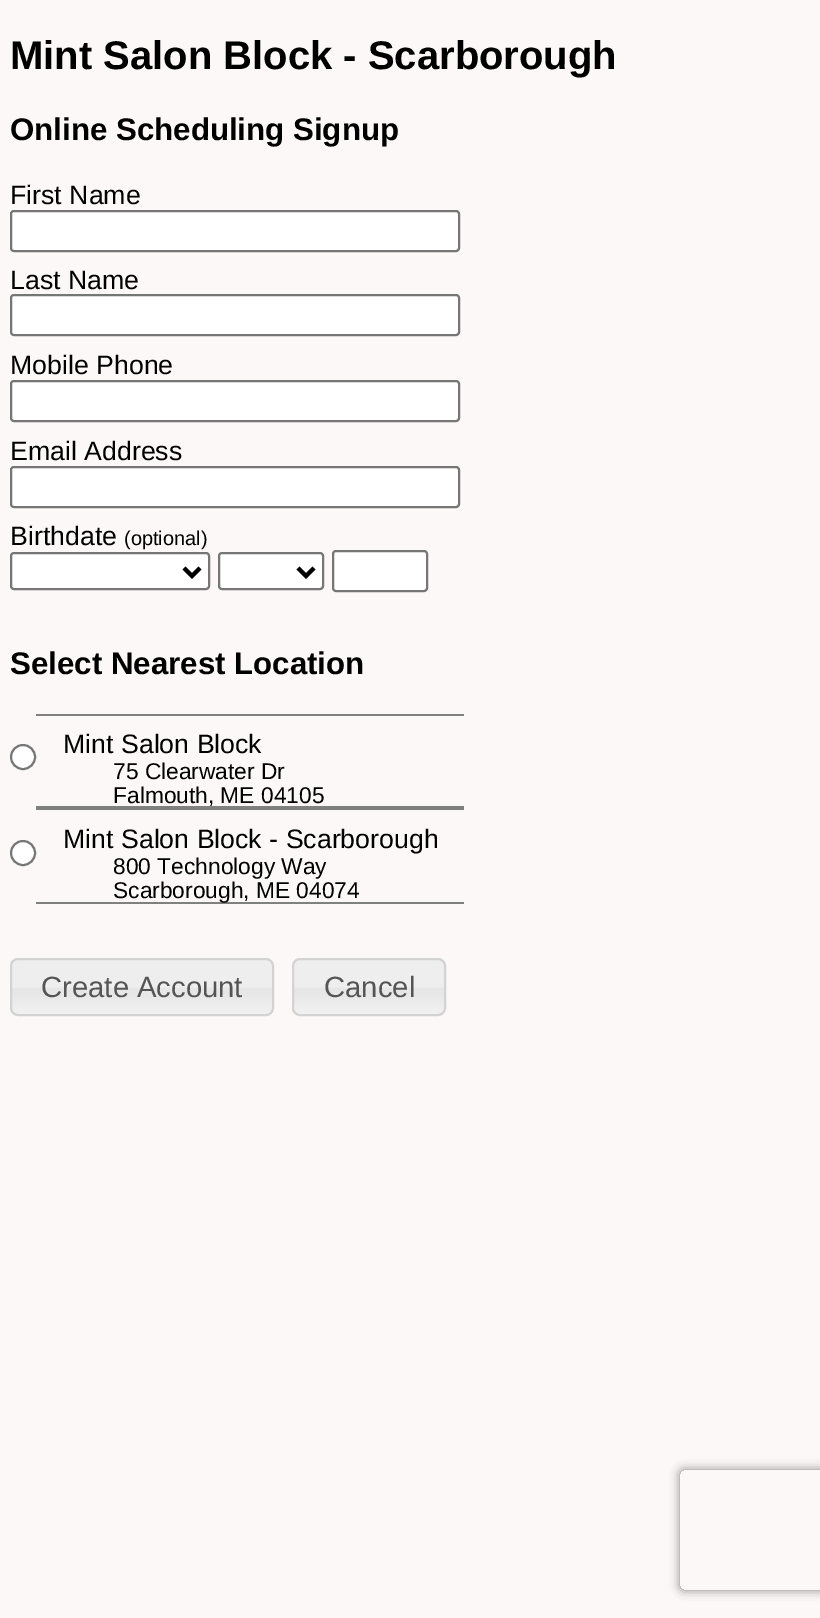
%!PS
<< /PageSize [820 1618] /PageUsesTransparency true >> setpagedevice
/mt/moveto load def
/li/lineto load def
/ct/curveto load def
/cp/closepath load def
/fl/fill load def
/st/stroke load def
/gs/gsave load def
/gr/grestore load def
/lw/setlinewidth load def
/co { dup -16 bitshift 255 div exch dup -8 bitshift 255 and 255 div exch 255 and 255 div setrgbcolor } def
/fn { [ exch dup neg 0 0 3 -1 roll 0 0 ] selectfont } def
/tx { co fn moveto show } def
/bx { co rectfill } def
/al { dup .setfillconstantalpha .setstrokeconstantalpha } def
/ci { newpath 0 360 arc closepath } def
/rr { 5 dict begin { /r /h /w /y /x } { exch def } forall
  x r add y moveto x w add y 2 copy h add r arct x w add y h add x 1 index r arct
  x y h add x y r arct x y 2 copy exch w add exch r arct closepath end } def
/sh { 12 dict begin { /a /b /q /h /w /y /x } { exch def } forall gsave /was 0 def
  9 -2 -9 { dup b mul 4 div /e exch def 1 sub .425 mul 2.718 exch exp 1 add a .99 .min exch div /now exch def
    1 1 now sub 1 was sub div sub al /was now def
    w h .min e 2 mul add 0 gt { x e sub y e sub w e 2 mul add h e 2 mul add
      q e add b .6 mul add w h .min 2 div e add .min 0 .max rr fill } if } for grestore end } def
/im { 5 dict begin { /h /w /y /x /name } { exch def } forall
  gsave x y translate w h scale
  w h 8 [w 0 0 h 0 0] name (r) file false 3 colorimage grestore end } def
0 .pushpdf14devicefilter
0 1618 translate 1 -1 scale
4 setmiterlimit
0 0 820 1618 16#FDF8F8 bx
16#FFFFFF co
11 211 448 40 3 rr gs fl gr
16#767676 co
2 lw
st
16#FFFFFF co
11 295 448 40 3 rr gs fl gr
16#767676 co
st
16#FFFFFF co
11 381 448 40 3 rr gs fl gr
16#767676 co
st
16#FFFFFF co
11 467 448 40 3 rr gs fl gr
16#767676 co
st
16#FFFFFF co
11 553 198 36 3 rr gs fl gr
16#767676 co
st
16#000000 co
4 lw
184 568 mt 192 576 li 200 568 li st
16#FFFFFF co
219 553 104 36 3 rr gs fl gr
16#767676 co
2 lw
st
16#000000 co
4 lw
298 568 mt 306 576 li 314 568 li st
16#FFFFFF co
333 551 94 40 3 rr gs fl gr
16#767676 co
2 lw
st
16#FFFFFF co
23 757 12 ci gs fl gr
16#767676 co
st
36 714 428 2 16#808080 bx
36 806 428 4 16#808080 bx
16#FFFFFF co
23 853 12 ci gs fl gr
16#767676 co
st
36 902 428 2 16#808080 bx
(media/1.raw) 10 958 264 58 im
16#D3D3D3 co
11 959 262 56 7 rr st
(media/2.raw) 292 958 154 58 im
293 959 152 56 7 rr st
gs
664 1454 mt 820 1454 li 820 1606 li 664 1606 li cp 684 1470 mt 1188 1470 li 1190 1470 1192 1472 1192 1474 ct 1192 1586 li 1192 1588 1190 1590 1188 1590 ct 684 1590 li 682 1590 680 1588 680 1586 ct 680 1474 li 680 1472 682 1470 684 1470 ct cp eoclip newpath
16#808080 co
680 1470 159 120 4 5 1 sh
gr
(Mint Salon Block - Scarborough) 10 69 /LiberationSans-Bold 40 16#000000 tx
(Online Scheduling Signup) 10 140 /LiberationSans-Bold 31.25 16#000000 tx
(First Name) 10 204 /LiberationSans-Regular 26.7 16#000000 tx
(Last Name) 10 289 /LiberationSans-Regular 26.7 16#000000 tx
(Mobile Phone) 10 374 /LiberationSans-Regular 26.7 16#000000 tx
(Email Address) 10 460 /LiberationSans-Regular 26.7 16#000000 tx
(Birthdate) 10 545 /LiberationSans-Regular 26.7 16#000000 tx
(\(optional\)) 124 545 /LiberationSans-Regular 20 16#000000 tx
(Select Nearest Location) 10 674 /LiberationSans-Bold 31.25 16#000000 tx
(Mint Salon Block) 63 753 /LiberationSans-Regular 26.7 16#000000 tx
(75 Clearwater Dr) 113 779 /LiberationSans-Regular 22.75 16#000000 tx
(Falmouth, ME 04105) 113 803 /LiberationSans-Regular 22.75 16#000000 tx
(Mint Salon Block - Scarborough) 63 848 /LiberationSans-Regular 26.7 16#000000 tx
(800 Technology Way) 113 874 /LiberationSans-Regular 22.75 16#000000 tx
(Scarborough, ME 04074) 113 898 /LiberationSans-Regular 22.75 16#000000 tx
(Create Account) 41 997 /LiberationSans-Regular 29.25 16#555555 tx
(Cancel) 324 997 /LiberationSans-Regular 29.25 16#555555 tx
.poppdf14devicefilter showpage
